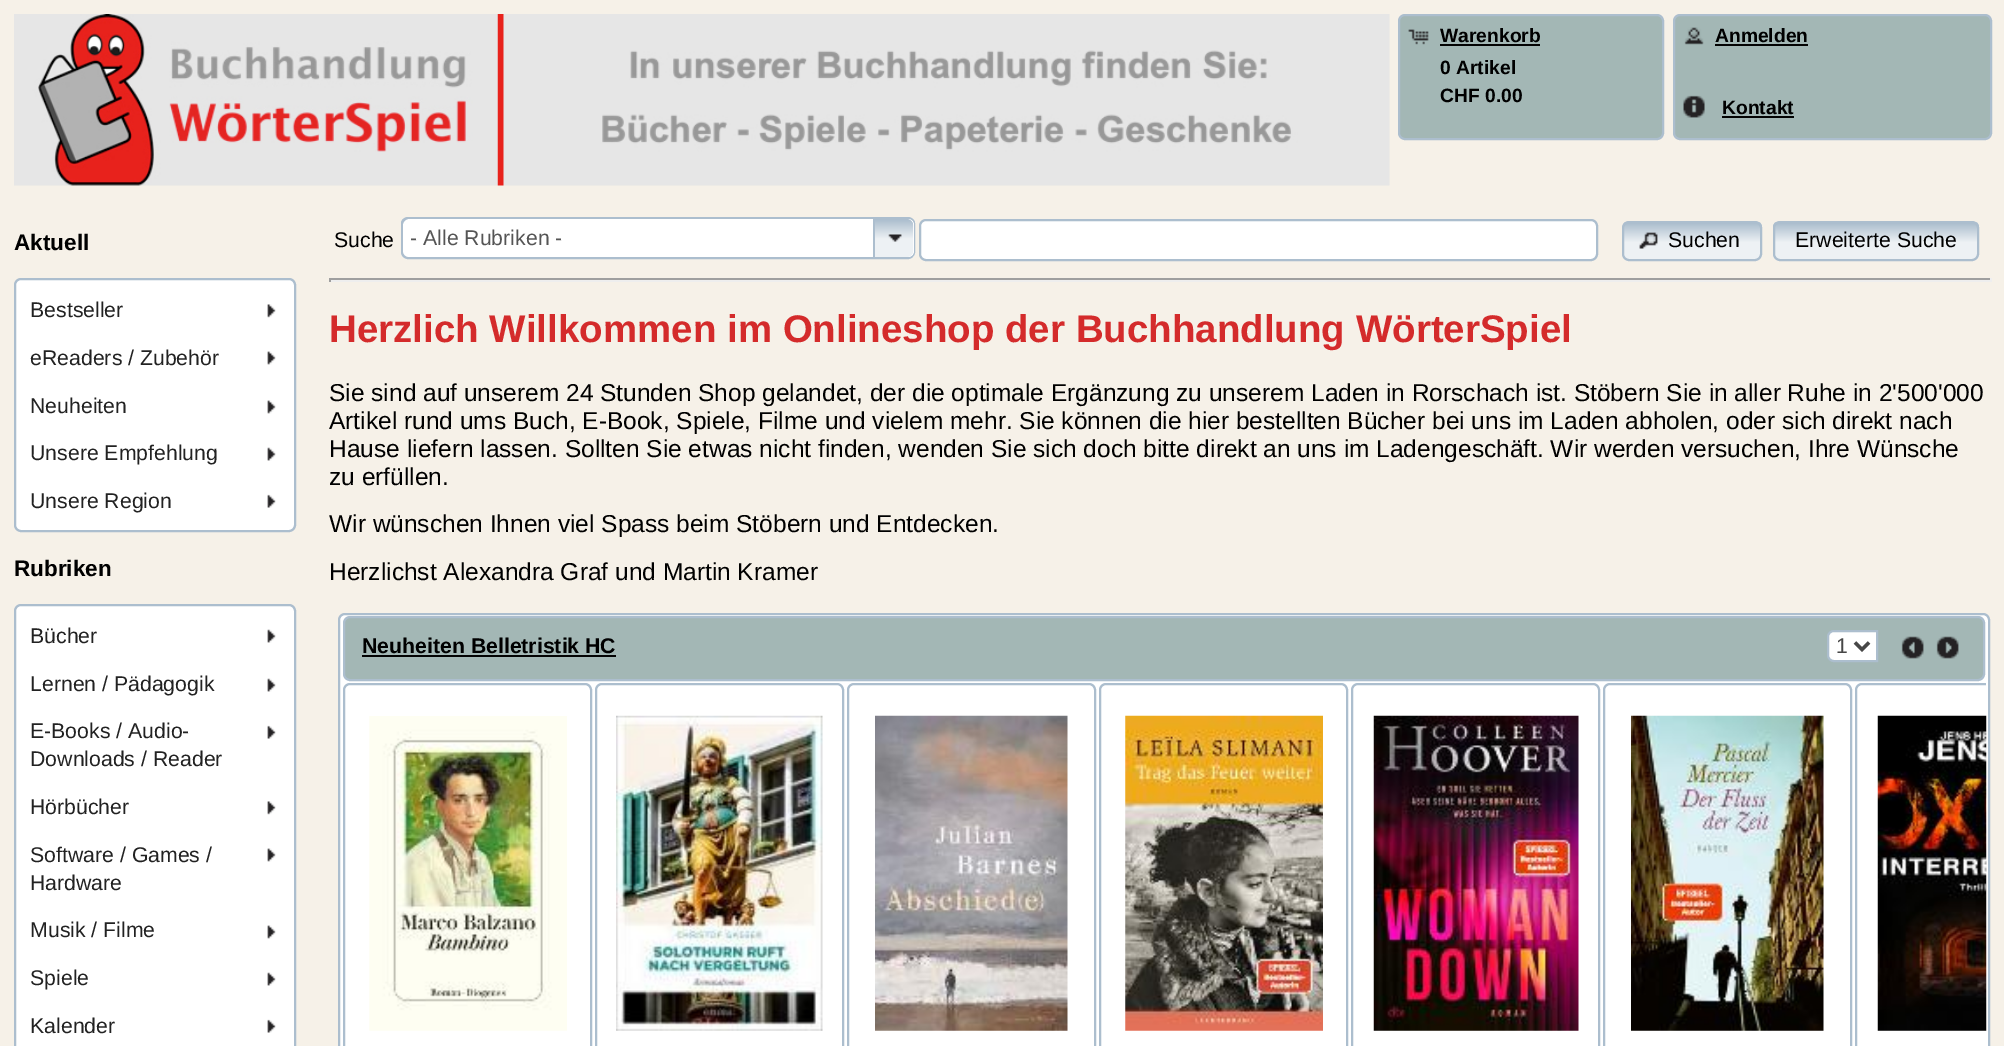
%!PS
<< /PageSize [2004 1046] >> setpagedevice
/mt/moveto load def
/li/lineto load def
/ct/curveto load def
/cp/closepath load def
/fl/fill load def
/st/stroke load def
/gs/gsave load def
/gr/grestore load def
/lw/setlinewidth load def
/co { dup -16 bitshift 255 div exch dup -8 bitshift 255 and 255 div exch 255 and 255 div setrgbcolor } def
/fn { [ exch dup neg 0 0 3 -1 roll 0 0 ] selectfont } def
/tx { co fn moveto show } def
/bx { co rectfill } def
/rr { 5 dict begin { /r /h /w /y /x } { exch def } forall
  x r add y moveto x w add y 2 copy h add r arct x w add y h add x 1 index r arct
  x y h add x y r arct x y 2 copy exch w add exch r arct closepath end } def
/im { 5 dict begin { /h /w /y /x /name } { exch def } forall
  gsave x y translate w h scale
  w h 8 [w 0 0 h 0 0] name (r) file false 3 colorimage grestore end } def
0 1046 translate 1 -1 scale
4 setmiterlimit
0 0 2004 1046 16#F6F1E8 bx
(media/1.raw) 14 14 1376 172 im
16#A3B7B5 co
1399 15 264 124 6 rr gs fl gr
16#ACBECE co
2 lw
st
(media/2.raw) 1408 29 21 16 im
1440 44 100 2 16#030303 bx
16#A3B7B5 co
1674 15 317 124 6 rr gs fl gr
16#ACBECE co
st
(media/3.raw) 1684 27 20 18 im
1715 44 93 2 16#030303 bx
(media/4.raw) 1683 95 22 23 im
1722 116 72 2 16#030303 bx
16#FFFFFF co
15 279 280 252 6 rr gs fl gr
16#ACBECE co
st
(media/5.raw) 267 304 9 14 im
(media/6.raw) 267 351 9 14 im
(media/6.raw) 267 400 9 14 im
(media/7.raw) 267 447 9 14 im
(media/8.raw) 267 494 9 14 im
16#FFFFFF co
15 605 280 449 6 rr gs fl gr
16#ACBECE co
st
(media/7.raw) 267 629 9 14 im
(media/7.raw) 267 678 9 14 im
(media/8.raw) 267 725 9 14 im
(media/5.raw) 267 801 9 14 im
(media/6.raw) 267 848 9 14 im
(media/6.raw) 267 925 9 14 im
(media/7.raw) 267 972 9 14 im
(media/8.raw) 267 1019 9 14 im
(media/9.raw) 401 218 514 41 im
402 218 512 40 6 rr st
gs
403 219 511 38 5 rr clip newpath
16#FFFFFF co
410 219 mt 909 219 li 912 219 914 221 914 224 ct 914 252 li 914 255 912 257 909 257 ct 410 257 li 406 257 403 254 403 250 ct 403 226 li 403 222 406 219 410 219 ct cp fl
gr
16#FFFFFF co
873 219 mt 907 219 li 911 219 914 222 914 226 ct 914 250 li 914 254 911 257 907 257 ct 873 257 li cp fl
(media/10.raw) 875 219 39 38 im
873 219 2 38 16#ACBECE bx
(media/11.raw) 888 234 14 8 im
16#FFFFFF co
920 220 677 40 6 rr gs fl gr
16#ACBECE co
st
(media/12.raw) 1622 222 140 39 im
1623 222 138 38 6 rr st
(media/13.raw) 1639 232 19 17 im
(media/14.raw) 1773 222 206 39 im
1774 222 204 38 6 rr st
329 278 1663 2 16#9F9F9F bx
1990 278 2 4 16#EEEEEE bx
329 280 1663 2 16#EEEEEE bx
329 278 2 4 16#9F9F9F bx
16#FFFFFF co
339 614 1650 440 6 rr gs fl gr
16#ACBECE co
st
16#A3B7B5 co
344 617 1640 63 6 rr gs fl gr
16#ACBECE co
st
362 655 254 2 16#030303 bx
16#FFFFFF co
1834 631 mt 1877 631 li 1877 661 li 1834 661 li 1830.5 661 1828 658.5 1828 655 ct 1828 637 li 1828 633.5 1830.5 631 1834 631 ct cp gs fl gr
16#ACBECE co
st
16#474747 co
3.5 lw
1855 642.5 mt 1862 649.5 li 1869 642.5 li st
(media/15.raw) 1901 636 23 23 im
(media/16.raw) 1936 636 23 23 im
16#ACBECE co
2 lw
344 684 247 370 6 rr st
(media/17.raw) 369 716 198 315 im
596 684 247 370 6 rr st
(media/18.raw) 616 715 207 316 im
848 684 247 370 6 rr st
(media/19.raw) 875 715 193 316 im
1100 684 247 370 6 rr st
(media/20.raw) 1125 715 198 316 im
1352 684 247 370 6 rr st
(media/21.raw) 1373 715 206 316 im
1604 684 247 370 6 rr st
(media/22.raw) 1631 715 193 316 im
gs
341 681 1645 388 rectclip
1856 684 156 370 6 rr st
gr
(media/23.raw) 1877 715 110 316 im
(Warenkorb) 1440 42 /LiberationSans-Bold 19.25 16#000000 tx
(0 Artikel) 1440 74 /LiberationSans-Bold 19.25 16#000000 tx
(CHF 0.00) 1440 102 /LiberationSans-Bold 19.25 16#000000 tx
(Anmelden) 1715 42 /LiberationSans-Bold 19.25 16#000000 tx
(Kontakt) 1722 114 /LiberationSans-Bold 19.25 16#000000 tx
(Aktuell) 14 250 /LiberationSans-Bold 22.5 16#000000 tx
(Bestseller) 30 317 /LiberationSans-Regular 21.25 16#222222 tx
(eReaders / Zubehör) 30 365 /LiberationSans-Regular 21.25 16#222222 tx
(Neuheiten) 30 413 /LiberationSans-Regular 21.25 16#222222 tx
(Unsere Empfehlung) 30 460 /LiberationSans-Regular 21.25 16#222222 tx
(Unsere Region) 30 508 /LiberationSans-Regular 21.25 16#222222 tx
(Rubriken) 14 576 /LiberationSans-Bold 22.5 16#000000 tx
(Bücher) 30 643 /LiberationSans-Regular 21.25 16#222222 tx
(Lernen / Pädagogik) 30 691 /LiberationSans-Regular 21.25 16#222222 tx
(E-Books / Audio-) 30 738 /LiberationSans-Regular 21.25 16#222222 tx
(Downloads / Reader) 30 766 /LiberationSans-Regular 21.25 16#222222 tx
(Hörbücher) 30 814 /LiberationSans-Regular 21.25 16#222222 tx
(Software / Games /) 30 862 /LiberationSans-Regular 21.25 16#222222 tx
(Hardware) 30 890 /LiberationSans-Regular 21.25 16#222222 tx
(Musik / Filme) 30 937 /LiberationSans-Regular 21.25 16#222222 tx
(Spiele) 30 985 /LiberationSans-Regular 21.25 16#222222 tx
(Kalender) 30 1033 /LiberationSans-Regular 21.25 16#222222 tx
(Suche) 334 247 /LiberationSans-Regular 21.25 16#000000 tx
(- Alle Rubriken -) 410 245 /LiberationSans-Regular 21.25 16#555555 tx
(Suchen) 1668 247 /LiberationSans-Regular 21.25 16#000000 tx
(Erweiterte Suche) 1795 247 /LiberationSans-Regular 21.25 16#000000 tx
(Herzlich Willkommen im Onlineshop der Buchhandlung WörterSpiel) 329 342 /LiberationSans-Bold 38.5 16#D42B2B tx
(Sie sind auf unserem 24 Stunden Shop gelandet, der die optimale Ergänzung zu unserem Laden in Rorschach ist. Stöbern Sie in aller Ruhe in 2'500'000) 329 401 /LiberationSans-Regular 24.5 16#000000 tx
(Artikel rund ums Buch, E-Book, Spiele, Filme und vielem mehr. Sie können die hier bestellten Bücher bei uns im Laden abholen, oder sich direkt nach) 329 429 /LiberationSans-Regular 24.5 16#000000 tx
(Hause liefern lassen. Sollten Sie etwas nicht finden, wenden Sie sich doch bitte direkt an uns im Ladengeschäft. Wir werden versuchen, Ihre Wünsche) 329 457 /LiberationSans-Regular 24.5 16#000000 tx
(zu erfüllen.) 329 485 /LiberationSans-Regular 24.5 16#000000 tx
(Wir wünschen Ihnen viel Spass beim Stöbern und Entdecken.) 329 532 /LiberationSans-Regular 24.5 16#000000 tx
(Herzlichst Alexandra Graf und Martin Kramer) 329 580 /LiberationSans-Regular 24.5 16#000000 tx
(Neuheiten Belletristik HC) 362 653 /LiberationSans-Bold 21.25 16#000000 tx
(1) 1836 653 /LiberationSans-Regular 21.25 16#474747 tx
showpage
